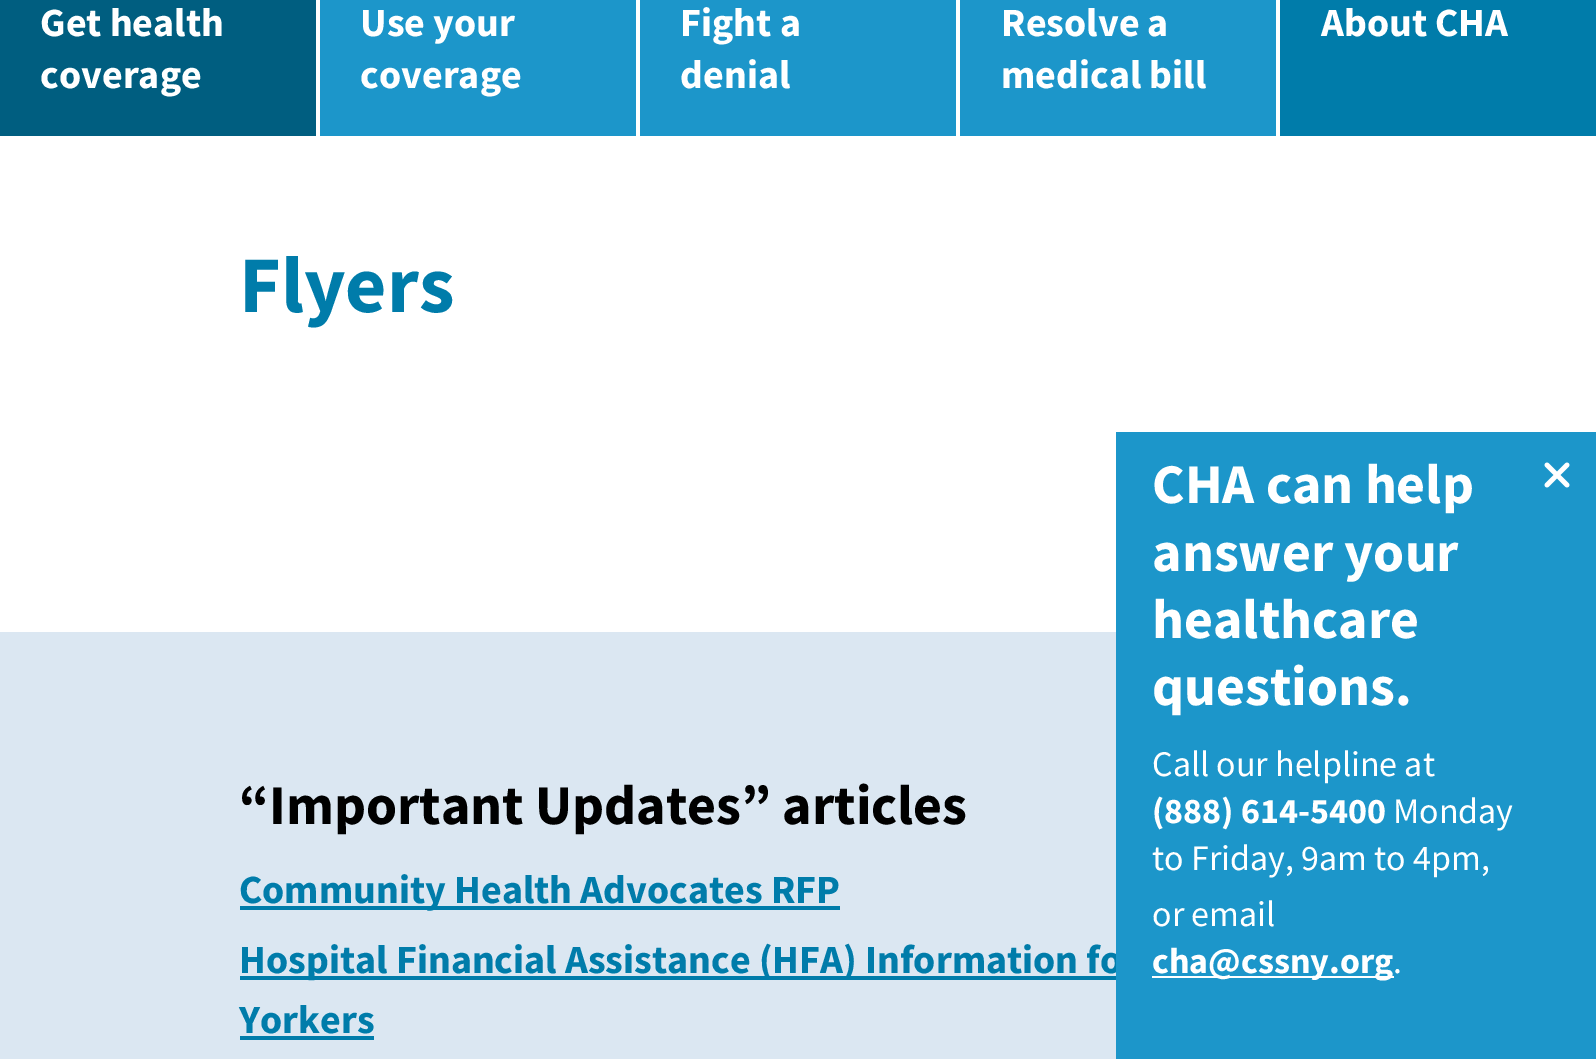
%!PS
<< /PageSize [1596 1059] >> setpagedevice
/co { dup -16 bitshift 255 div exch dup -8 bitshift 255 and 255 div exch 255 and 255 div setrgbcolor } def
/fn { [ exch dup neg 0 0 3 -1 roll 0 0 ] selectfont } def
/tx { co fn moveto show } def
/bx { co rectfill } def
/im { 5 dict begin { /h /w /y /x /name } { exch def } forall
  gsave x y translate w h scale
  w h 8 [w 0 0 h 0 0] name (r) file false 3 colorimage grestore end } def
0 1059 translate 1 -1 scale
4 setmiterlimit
0 0 1596 1059 16#FFFFFF bx
0 0 316 136 16#005E80 bx
320 0 316 136 16#1C96CA bx
640 0 316 136 16#1C96CA bx
960 0 316 136 16#1C96CA bx
1280 0 316 136 16#007CAA bx
0 632 1116 427 16#DBE7F2 bx
240 906 600 4 16#007CAA bx
240 976 876 4 16#007CAA bx
240 1036 134 4 16#007CAA bx
(Get health) 40 36 /SourceSansPro-Bold 40 16#FFFFFF tx
(coverage) 40 88 /SourceSansPro-Bold 40 16#FFFFFF tx
(Use your) 360 36 /SourceSansPro-Bold 40 16#FFFFFF tx
(coverage) 360 88 /SourceSansPro-Bold 40 16#FFFFFF tx
(Fight a) 680 36 /SourceSansPro-Bold 40 16#FFFFFF tx
(denial) 680 88 /SourceSansPro-Bold 40 16#FFFFFF tx
(Resolve a) 1001 36 /SourceSansPro-Bold 40 16#FFFFFF tx
(medical bill) 1001 88 /SourceSansPro-Bold 40 16#FFFFFF tx
(About CHA) 1321 36 /SourceSansPro-Bold 40 16#FFFFFF tx
(Flyers) 239 312 /SourceSansPro-Bold 80 16#007CAA tx
(“Important Updates” articles) 239 824 /SourceSansPro-Bold 56 16#000000 tx
(Community Health Advocates RFP) 239 903 /SourceSansPro-Bold 40 16#007CAA tx
(Hospital Financial Assistance \(HFA\) Information fo) 239 973 /SourceSansPro-Bold 40 16#007CAA tx
(Yorkers) 239 1033 /SourceSansPro-Bold 40 16#007CAA tx
1116 432 480 627 16#1C96CA bx
(CHA can help) 1152 503 /SourceSansPro-Bold 56 16#FFFFFF tx
(answer your) 1152 571 /SourceSansPro-Bold 56 16#FFFFFF tx
(healthcare) 1152 638 /SourceSansPro-Bold 56 16#FFFFFF tx
(questions.) 1152 705 /SourceSansPro-Bold 56 16#FFFFFF tx
(media/1.raw) 1544 462 26 26 im
(Call our helpline at) 1152 776 /SourceSansPro-Regular 36 16#FFFFFF tx
(\(888\) 614-5400) 1152 823 /SourceSansPro-Bold 36 16#FFFFFF tx
(Monday) 1393 823 /SourceSansPro-Regular 36 16#FFFFFF tx
(to Friday, 9am to 4pm,) 1152 870 /SourceSansPro-Regular 36 16#FFFFFF tx
(or email) 1152 926 /SourceSansPro-Regular 36 16#FFFFFF tx
1152 976 242 2 16#FFFFFF bx
(cha@cssny.org) 1152 973 /SourceSansPro-Bold 36 16#FFFFFF tx
(.) 1393 973 /SourceSansPro-Regular 36 16#FFFFFF tx
showpage
